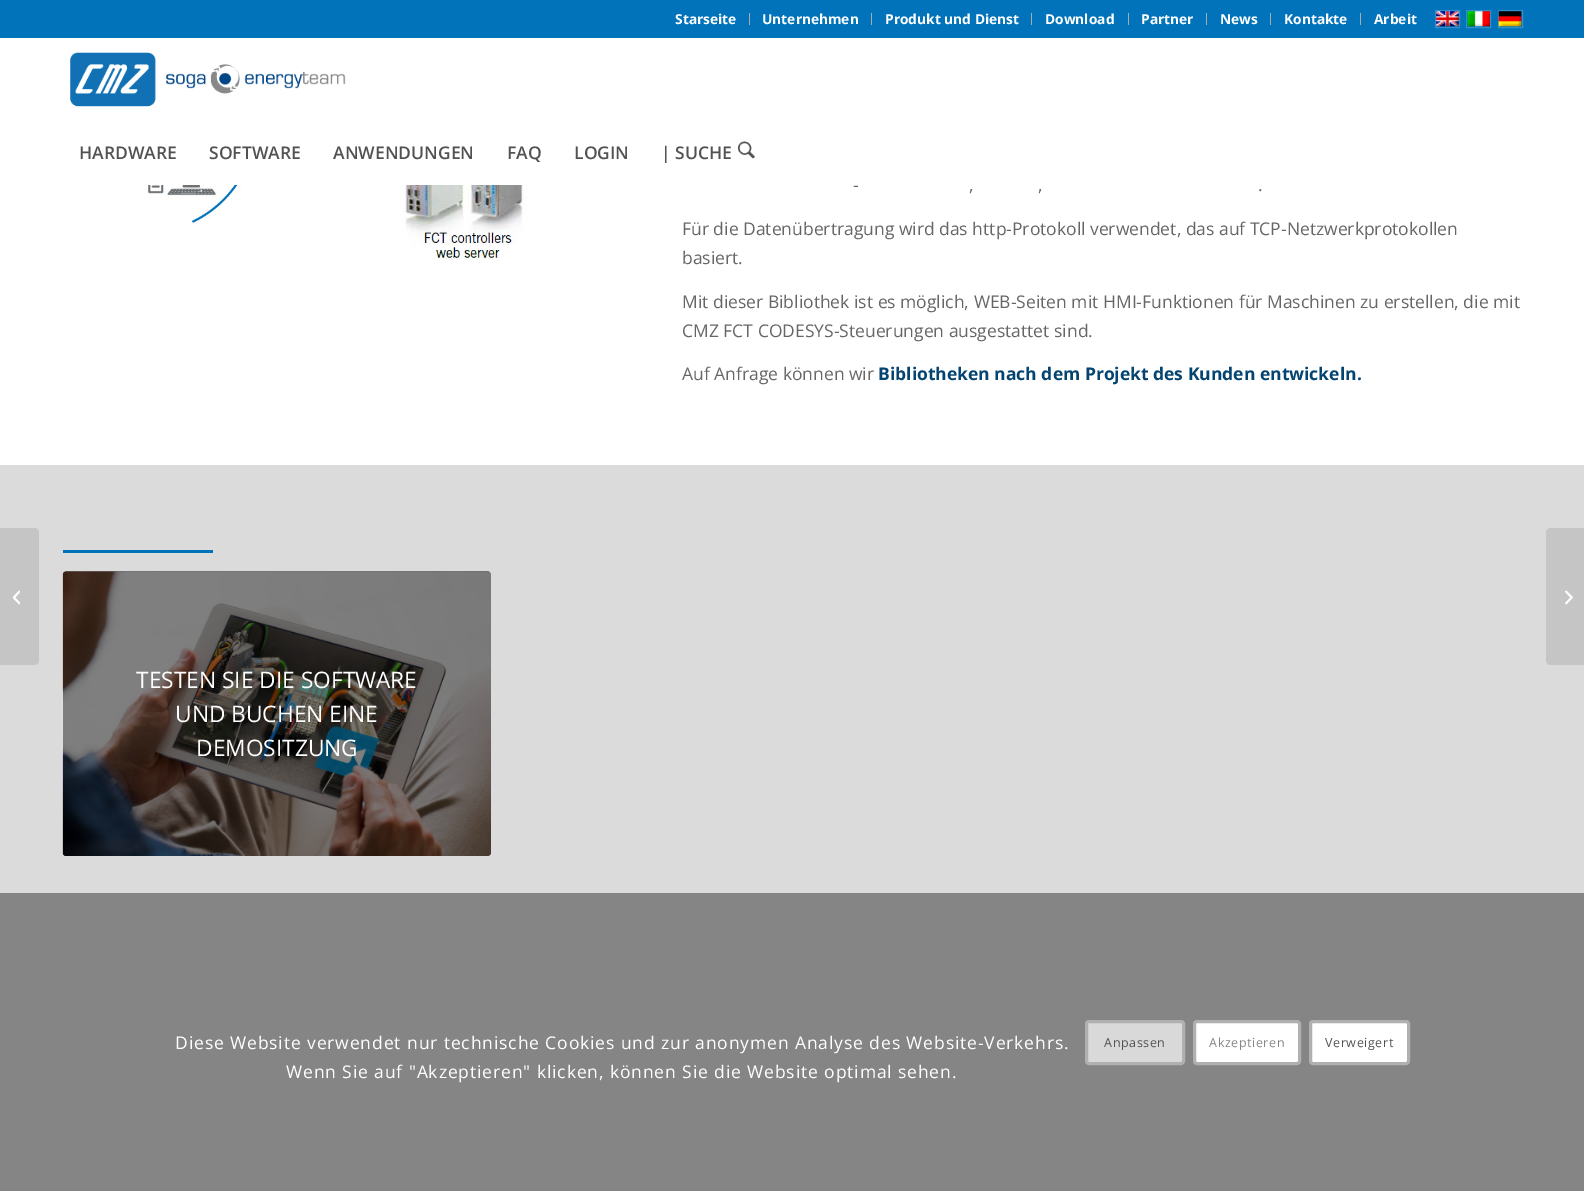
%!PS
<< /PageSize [1584 1191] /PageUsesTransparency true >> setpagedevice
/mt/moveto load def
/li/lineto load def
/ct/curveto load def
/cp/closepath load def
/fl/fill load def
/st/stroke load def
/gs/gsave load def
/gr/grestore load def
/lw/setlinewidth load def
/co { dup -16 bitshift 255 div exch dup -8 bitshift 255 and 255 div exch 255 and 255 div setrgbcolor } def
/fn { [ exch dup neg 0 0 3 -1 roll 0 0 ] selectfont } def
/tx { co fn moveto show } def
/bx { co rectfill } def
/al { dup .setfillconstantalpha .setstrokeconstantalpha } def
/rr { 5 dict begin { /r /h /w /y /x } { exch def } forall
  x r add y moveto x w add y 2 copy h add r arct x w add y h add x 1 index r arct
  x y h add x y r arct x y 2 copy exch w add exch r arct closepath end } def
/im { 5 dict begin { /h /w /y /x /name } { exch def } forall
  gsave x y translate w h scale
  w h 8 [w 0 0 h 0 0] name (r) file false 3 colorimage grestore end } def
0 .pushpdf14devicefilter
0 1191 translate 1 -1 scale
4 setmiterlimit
0 0 1584 1191 16#FFFFFF bx
0 0 1584 38 16#0073BA bx
749 13 1 12 16#ABABAB bx
871 13 1 12 16#ABABAB bx
1031 13 1 12 16#ABABAB bx
1128 13 1 12 16#ABABAB bx
1206 13 1 12 16#ABABAB bx
1270 13 1 12 16#ABABAB bx
1360 13 1 12 16#ABABAB bx
16#338FC8 co
1435.5 10.5 24 17 rectstroke
(media/1.raw) 1436 11 23 16 im
1466.5 10.5 24 17 rectstroke
(media/2.raw) 1467 11 23 16 im
1498.5 10.5 24 17 rectstroke
(media/3.raw) 1498 11 24 16 im
(media/4.raw) 70 52 276 55 im
(media/5.raw) 737 141 18 18 im
0 465 1584 428 16#DBDBDB bx
16#C5C5C5 co
0 528 mt 34 528 li 37 528 39 530 39 533 ct 39 660 li 39 663 37 665 34 665 ct 0 665 li cp fl
(media/6.raw) 13 590 7 15 im
(media/7.raw) 109 185 418 75 im
63 550 150 3 16#0072BA bx
(media/8.raw) 62 571 429 285 im
0.5 al
16#000000 co
63 571 428 285 4 rr fl
1 al
16#C5C5C5 co
1551 528 mt 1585 528 li 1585 665 li 1551 665 li 1548 665 1546 663 1546 660 ct 1546 533 li 1546 530 1548 528 1551 528 ct cp fl
(media/9.raw) 1565 590 8 15 im
0 893 1584 298 16#858585 bx
16#D9D9D9 co
1086.5 1021.5 97 42 2.5 rr gs fl gr
16#B0B0B0 co
3 lw
st
16#FFFFFF co
1194.5 1021.5 105 42 2.5 rr gs fl gr
16#B0B0B0 co
st
16#FFFFFF co
1310.5 1021.5 98 42 2.5 rr gs fl gr
16#B0B0B0 co
st
(Starseite) 675 24 /OpenSans-Bold 13.75 16#FFFFFF tx
(Unternehmen) 762 24 /OpenSans-Bold 13.75 16#FFFFFF tx
(Produkt und Dienst) 885 24 /OpenSans-Bold 13.75 16#FFFFFF tx
(Download) 1045 24 /OpenSans-Bold 13.75 16#FFFFFF tx
(Partner) 1141 24 /OpenSans-Bold 13.75 16#FFFFFF tx
(News) 1220 24 /OpenSans-Bold 13.75 16#FFFFFF tx
(Kontakte) 1284 24 /OpenSans-Bold 13.75 16#FFFFFF tx
(Arbeit) 1374 24 /OpenSans-Bold 13.75 16#FFFFFF tx
(HARDWARE) 79 159 /OpenSans-SemiBold 17.5 16#525252 tx
(SOFTWARE) 209 159 /OpenSans-SemiBold 17.5 16#525252 tx
(ANWENDUNGEN) 333 159 /OpenSans-SemiBold 17.5 16#525252 tx
(FAQ) 507 159 /OpenSans-SemiBold 17.5 16#525252 tx
(LOGIN) 574 159 /OpenSans-SemiBold 17.5 16#525252 tx
(| SUCHE) 661 159 /OpenSans-SemiBold 17.5 16#525252 tx
(-) 853 191 /OpenSans-Regular 17.5 16#666666 tx
(,) 969 191 /OpenSans-Regular 17.5 16#666666 tx
(,) 1038 191 /OpenSans-Regular 17.5 16#666666 tx
(.) 1258 191 /OpenSans-Regular 17.5 16#666666 tx
(Für die Datenübertragung wird das http-Protokoll verwendet, das auf TCP-Netzwerkprotokollen) 682 235 /OpenSans-Regular 17.5 16#666666 tx
(basiert.) 682 264 /OpenSans-Regular 17.5 16#666666 tx
(Mit dieser Bibliothek ist es möglich, WEB-Seiten mit HMI-Funktionen für Maschinen zu erstellen, die mit) 682 308 /OpenSans-Regular 17.5 16#666666 tx
(CMZ FCT CODESYS-Steuerungen ausgestattet sind.) 682 337 /OpenSans-Regular 17.5 16#666666 tx
(Auf Anfrage können wir) 682 380 /OpenSans-Regular 17.5 16#666666 tx
(Bibliotheken nach dem Projekt des Kunden entwickeln.) 878 380 /OpenSans-Bold 17.5 16#044471 tx
(TESTEN SIE DIE SOFTWARE) 136 688 /OpenSans-Regular 22.75 16#FFFFFF tx
(UND BUCHEN EINE) 175 722 /OpenSans-Regular 22.75 16#FFFFFF tx
(DEMOSITZUNG) 196 756 /OpenSans-Regular 22.75 16#FFFFFF tx
/OpenSans-Regular 17.5 fn
175 1049 mt .88 0 (Diese Website verwendet nur technische Cookies und zur anonymen Analyse des Website-Verkehrs.) ashow
286 1078 mt .88 0 (Wenn Sie auf "Akzeptieren" klicken, können Sie die Website optimal sehen.) ashow
/OpenSans-Regular 12.5 fn
16#525252 co
1104 1047 mt .6 0 (Anpassen) ashow
16#858585 co
1209 1047 mt .6 0 (Akzeptieren) ashow
16#525252 co
1325 1047 mt .6 0 (Verweigert) ashow
.poppdf14devicefilter showpage
